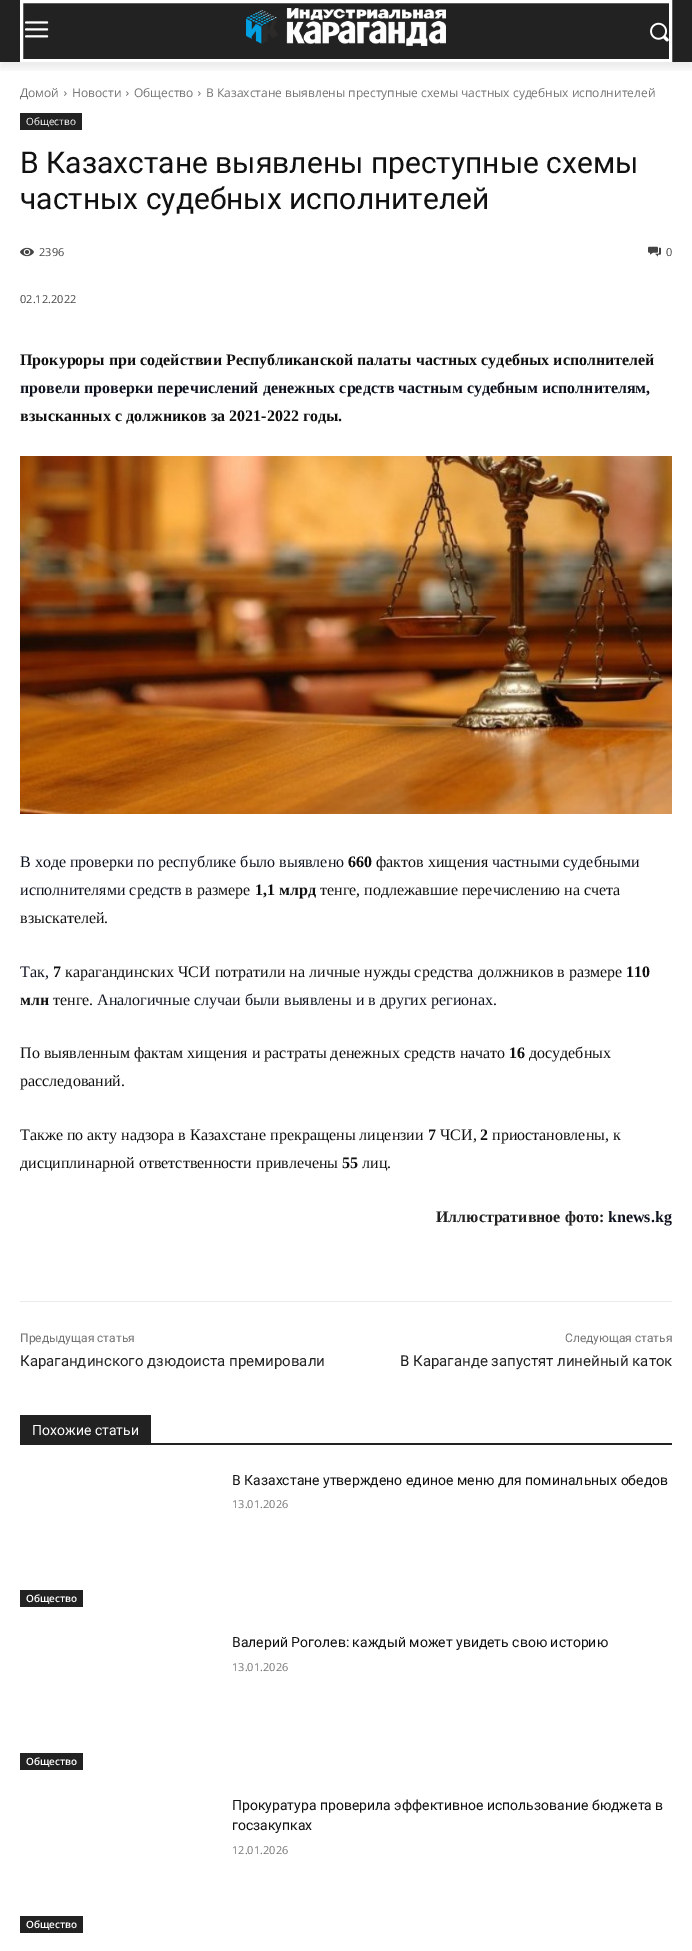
%!PS
<< /PageSize [692 1951] /PageUsesTransparency true >> setpagedevice
/gs/gsave load def
/gr/grestore load def
/lw/setlinewidth load def
/co { dup -16 bitshift 255 div exch dup -8 bitshift 255 and 255 div exch 255 and 255 div setrgbcolor } def
/fn { [ exch dup neg 0 0 3 -1 roll 0 0 ] selectfont } def
/tx { co fn moveto show } def
/bx { co rectfill } def
/al { dup .setfillconstantalpha .setstrokeconstantalpha } def
/rr { 5 dict begin { /r /h /w /y /x } { exch def } forall
  x r add y moveto x w add y 2 copy h add r arct x w add y h add x 1 index r arct
  x y h add x y r arct x y 2 copy exch w add exch r arct closepath end } def
/sh { 12 dict begin { /a /b /q /h /w /y /x } { exch def } forall gsave /was 0 def
  9 -2 -9 { dup b mul 4 div /e exch def 1 sub .425 mul 2.718 exch exp 1 add a .99 .min exch div /now exch def
    1 1 now sub 1 was sub div sub al /was now def
    w h .min e 2 mul add 0 gt { x e sub y e sub w e 2 mul add h e 2 mul add
      q e add b .6 mul add w h .min 2 div e add .min 0 .max rr fill } if } for grestore end } def
/im { 5 dict begin { /h /w /y /x /name } { exch def } forall
  gsave x y translate w h scale
  w h 8 [w 0 0 h 0 0] name (r) file false 3 colorimage grestore end } def
0 .pushpdf14devicefilter
0 1951 translate 1 -1 scale
4 setmiterlimit
0 0 692 1951 16#FFFFFF bx
0 0 692 62 16#222222 bx
16#FFFFFF co
3 lw
21.5 1.5 649 59 rectstroke
(media/1.raw) 25 21 24 17 im
(media/2.raw) 246 8 200 38 im
(media/3.raw) 650 22 19 20 im
gs
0 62 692 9 rectclip
16#000000 co
0 6 692 62 0 4 .08 sh
gr
(media/4.raw) 64 91 3 5 im
(media/4.raw) 126 91 3 5 im
(media/4.raw) 198 91 3 5 im
20 113 62 17 16#222222 bx
(media/5.raw) 20 247 14 10 im
(media/6.raw) 648 246 13 11 im
(media/7.raw) 20 456 652 358 im
20 1301 652 1 16#EBEBEB bx
20 1443 652 2 16#222222 bx
20 1415 131 28 16#222222 bx
20 1590 63 17 16#222222 bx
20 1753 63 17 16#222222 bx
20 1916 63 17 16#222222 bx
(Домой) 20 97 /OpenSans-Regular 12 16#747474 tx
(Новости) 72 97 /OpenSans-Regular 12 16#747474 tx
(Общество) 134 97 /OpenSans-Regular 12 16#747474 tx
(В Казахстане выявлены преступные схемы частных судебных исполнителей) 206 97 /OpenSans-Regular 12 16#747474 tx
(Общество) 26 125 /OpenSans-Regular 10 16#FFFFFF tx
(В Казахстане выявлены преступные схемы) 20 173 /Roboto-Regular 30 16#111111 tx
(частных судебных исполнителей) 20 209 /Roboto-Regular 30 16#111111 tx
(2396) 39 256 /OpenSans-Regular 11 16#444444 tx
(0) 666 256 /OpenSans-Regular 11 16#444444 tx
(02.12.2022) 20 303 /OpenSans-Regular 11 16#444444 tx
(Прокуроры при содействии Республиканской палаты частных судебных исполнителей) 20 365 /LiberationSerif-Bold 16 16#111111 tx
(провели проверки перечислений денежных средств частным судебным исполнителям,) 20 393 /LiberationSerif-Bold 16 16#0F1320 tx
(взысканных с должников за 2021-2022 годы.) 20 421 /LiberationSerif-Bold 16 16#111111 tx
(В ходе проверки по республике было выявлено) 20 867 /LiberationSerif-Regular 16 16#0F1320 tx
(660) 348 867 /LiberationSerif-Bold 16 16#111111 tx
(фактов хищения) 376 867 /LiberationSerif-Regular 16 16#111111 tx
(частными судебными) 492 867 /LiberationSerif-Regular 16 16#0F1320 tx
(исполнителями средств) 20 895 /LiberationSerif-Regular 16 16#0F1320 tx
(в размере) 185 895 /LiberationSerif-Regular 16 16#111111 tx
(1,1 млрд) 255 895 /LiberationSerif-Bold 16 16#111111 tx
(тенге, подлежавшие перечислению на счета) 320 895 /LiberationSerif-Regular 16 16#111111 tx
(взыскателей.) 20 923 /LiberationSerif-Regular 16 16#111111 tx
(Так,) 20 977 /LiberationSerif-Regular 16 16#0F1320 tx
(7) 53 977 /LiberationSerif-Bold 16 16#111111 tx
(карагандинских ЧСИ потратили на личные нужды средства должников в размере) 65 977 /LiberationSerif-Regular 16 16#111111 tx
(110) 626 977 /LiberationSerif-Bold 16 16#111111 tx
(млн) 20 1005 /LiberationSerif-Bold 16 16#111111 tx
(тенге.) 53 1005 /LiberationSerif-Regular 16 16#111111 tx
(Аналогичные случаи были выявлены и в других регионах.) 97 1005 /LiberationSerif-Regular 16 16#0F1320 tx
(По выявленным фактам хищения и растраты денежных средств начато) 20 1058 /LiberationSerif-Regular 16 16#111111 tx
(16) 509 1058 /LiberationSerif-Bold 16 16#111111 tx
(досудебных) 529 1058 /LiberationSerif-Regular 16 16#111111 tx
(расследований.) 20 1086 /LiberationSerif-Regular 16 16#111111 tx
(Также по акту надзора в Казахстане прекращены лицензии) 20 1140 /LiberationSerif-Regular 16 16#111111 tx
(7) 428 1140 /LiberationSerif-Bold 16 16#111111 tx
(ЧСИ,) 440 1140 /LiberationSerif-Regular 16 16#111111 tx
(2) 480 1140 /LiberationSerif-Bold 16 16#111111 tx
(приостановлены, к) 492 1140 /LiberationSerif-Regular 16 16#111111 tx
(дисциплинарной ответственности привлечены) 20 1168 /LiberationSerif-Regular 16 16#111111 tx
(55) 342 1168 /LiberationSerif-Bold 16 16#111111 tx
(лиц.) 362 1168 /LiberationSerif-Regular 16 16#111111 tx
(Иллюстративное фото:) 436 1222 /LiberationSerif-Bold 16 16#222222 tx
(knews.kg) 608 1222 /LiberationSerif-Bold 16 16#0F1320 tx
(Предыдущая статья) 20 1342 /Roboto-Regular 12 16#747474 tx
(Карагандинского дзюдоиста премировали) 20 1366 /Roboto-Regular 15 16#222222 tx
(Следующая статья) 565 1342 /Roboto-Regular 12 16#747474 tx
(В Караганде запустят линейный каток) 400 1366 /Roboto-Regular 15 16#222222 tx
(Похожие статьи) 32 1435 /Roboto-Regular 14 16#FFFFFF tx
(В Казахстане утверждено единое меню для поминальных обедов) 232 1485 /Roboto-Regular 14 16#111111 tx
(13.01.2026) 232 1508 /OpenSans-Regular 11 16#747474 tx
(Общество) 26 1602 /OpenSans-SemiBold 10 16#FFFFFF tx
(Валерий Роголев: каждый может увидеть свою историю) 232 1647 /Roboto-Regular 14 16#111111 tx
(13.01.2026) 232 1671 /OpenSans-Regular 11 16#747474 tx
(Общество) 26 1765 /OpenSans-SemiBold 10 16#FFFFFF tx
(Прокуратура проверила эффективное использование бюджета в) 232 1810 /Roboto-Regular 14 16#111111 tx
(госзакупках) 232 1830 /Roboto-Regular 14 16#111111 tx
(12.01.2026) 232 1854 /OpenSans-Regular 11 16#747474 tx
(Общество) 26 1928 /OpenSans-SemiBold 10 16#FFFFFF tx
.poppdf14devicefilter showpage
